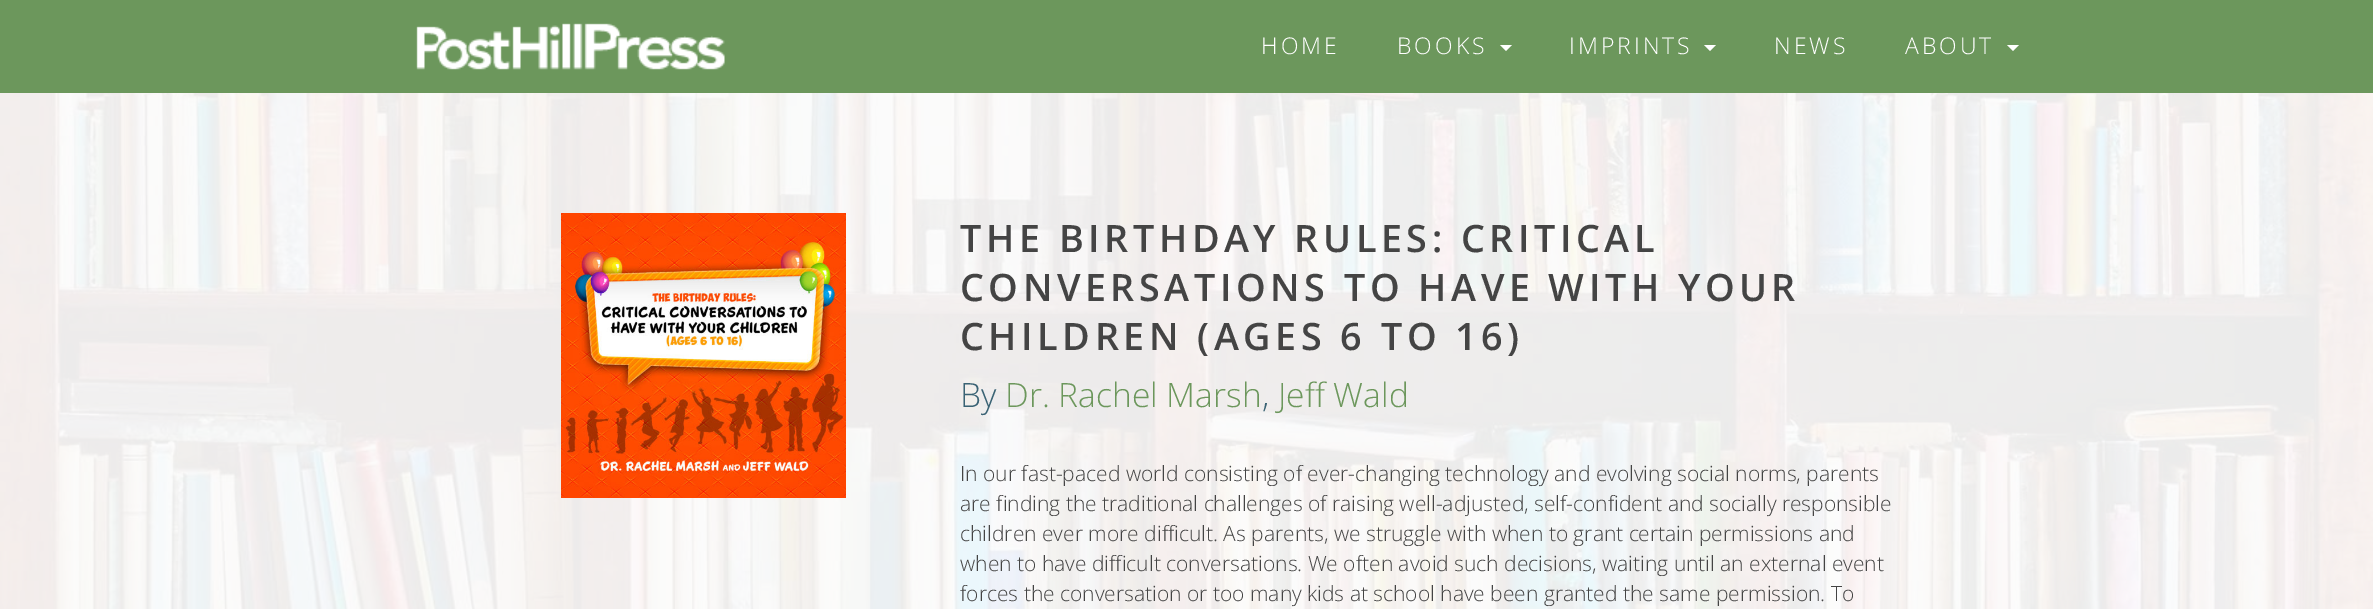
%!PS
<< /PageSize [2373 609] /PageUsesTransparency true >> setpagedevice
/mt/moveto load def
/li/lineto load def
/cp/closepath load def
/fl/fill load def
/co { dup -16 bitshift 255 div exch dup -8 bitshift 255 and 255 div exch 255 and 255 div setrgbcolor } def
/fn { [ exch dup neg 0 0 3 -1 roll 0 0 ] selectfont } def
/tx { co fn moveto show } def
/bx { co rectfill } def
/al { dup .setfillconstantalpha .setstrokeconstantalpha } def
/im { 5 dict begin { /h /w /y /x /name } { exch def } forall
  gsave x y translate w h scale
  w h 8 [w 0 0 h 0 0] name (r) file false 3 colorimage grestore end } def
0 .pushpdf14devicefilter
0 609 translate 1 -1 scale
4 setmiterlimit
0 0 2373 609 16#FFFFFF bx
0 0 2373 93 16#6C975C bx
(media/1.raw) 416 23 309 47 im
16#FFFFFF co
1500 45 mt 1512 45 li 1506 51 li cp fl
1704 45 mt 1716 45 li 1710 51 li cp fl
2007 45 mt 2019 45 li 2013 51 li cp fl
(media/2.raw) 0 93 2373 516 im
0.92 al
0 93 2373 516 16#FFFFFF bx
1 al
(media/3.raw) 561 213 285 285 im
/OpenSans-Light 23 fn
1261 54 mt 3 0 (HOME) ashow
1397 54 mt 3 0 (BOOKS) ashow
1569 54 mt 3 0 (IMPRINTS) ashow
1774 54 mt 3 0 (NEWS) ashow
1905 54 mt 3 0 (ABOUT) ashow
/OpenSans-SemiBold 37.8 fn
16#444444 co
960 252 mt 4.5 0 (THE BIRTHDAY RULES: CRITICAL) ashow
960 301 mt 4.5 0 (CONVERSATIONS TO HAVE WITH YOUR) ashow
960 350 mt 4.5 0 (CHILDREN \(AGES 6 TO 16\)) ashow
(By) 960 407 /OpenSans-Light 33.5 16#3A6374 tx
(Dr. Rachel Marsh) 1005 407 /OpenSans-Light 33.5 16#6C975C tx
(,) 1262 407 /OpenSans-Light 33.5 16#3A6374 tx
(Jeff Wald) 1278 407 /OpenSans-Light 33.5 16#6C975C tx
(In our fast-paced world consisting of ever-changing technology and evolving social norms, parents) 960 481 /OpenSans-Light 21 16#444444 tx
(are finding the traditional challenges of raising well-adjusted, self-confident and socially responsible) 960 511 /OpenSans-Light 21 16#444444 tx
(children ever more difficult. As parents, we struggle with when to grant certain permissions and) 960 541 /OpenSans-Light 21 16#444444 tx
(when to have difficult conversations. We often avoid such decisions, waiting until an external event) 960 571 /OpenSans-Light 21 16#444444 tx
(forces the conversation or too many kids at school have been granted the same permission. To) 960 601 /OpenSans-Light 21 16#444444 tx
.poppdf14devicefilter showpage
